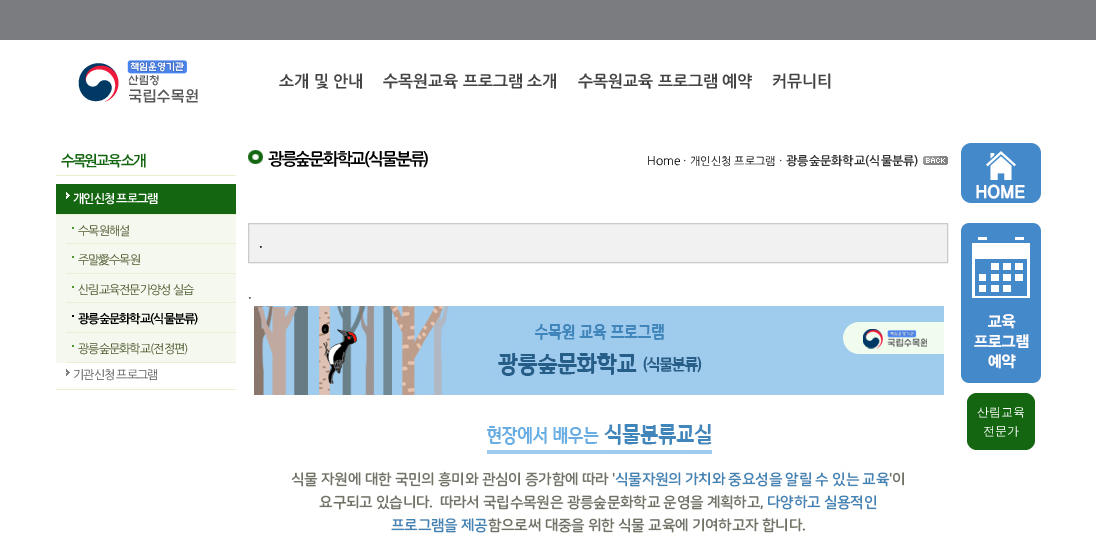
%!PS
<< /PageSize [1096 558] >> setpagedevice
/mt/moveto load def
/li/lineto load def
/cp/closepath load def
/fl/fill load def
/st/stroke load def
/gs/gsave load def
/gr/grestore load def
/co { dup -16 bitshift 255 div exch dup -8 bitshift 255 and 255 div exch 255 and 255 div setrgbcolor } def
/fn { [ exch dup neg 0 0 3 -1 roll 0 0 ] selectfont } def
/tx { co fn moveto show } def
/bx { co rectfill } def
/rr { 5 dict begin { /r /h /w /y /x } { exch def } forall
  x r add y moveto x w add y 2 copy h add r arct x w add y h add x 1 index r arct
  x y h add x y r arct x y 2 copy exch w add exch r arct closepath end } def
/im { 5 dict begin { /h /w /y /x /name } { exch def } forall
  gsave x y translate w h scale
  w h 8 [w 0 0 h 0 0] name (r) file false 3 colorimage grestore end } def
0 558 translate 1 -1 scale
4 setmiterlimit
0 0 1096 558 16#FFFFFF bx
0 0 1096 40 16#7B7C80 bx
(media/1.raw) 78 60 120 43 im
56 175 180 1 16#E9F0D1 bx
56 184 180 30 16#146611 bx
(media/2.raw) 66 192 4 7 im
56 214 180 1 16#E9F0D1 bx
56 215 180 148 16#F5F8EF bx
72 227 2 2 16#499B2B bx
66 243 170 1 16#E9F0D1 bx
72 256 2 2 16#499B2B bx
66 273 170 1 16#E9F0D1 bx
72 286 2 2 16#499B2B bx
66 302 170 1 16#E9F0D1 bx
72 315 2 2 16#000000 bx
66 332 170 1 16#E9F0D1 bx
72 345 2 2 16#499B2B bx
66 362 170 1 16#E9F0D1 bx
(media/3.raw) 66 369 4 7 im
56 389 180 1 16#E9F0D1 bx
(media/4.raw) 248 150 15 14 im
(media/5.raw) 923 156 25 9 im
16#F1F1F1 co
248.5 223.5 mt 947.5 223.5 li 947.5 262.5 li 248.5 262.5 li cp gs fl gr
16#CACACA co
st
(media/6.raw) 254 306 690 232 im
(media/7.raw) 961 143 80 60 im
(media/8.raw) 961 223 80 160 im
16#146611 co
967 393 68 57 10 rr fl
(소개 및 안내) 279 87 /NanumGothic-Bold 16 16#444444 tx
(수목원교육 프로그램 소개) 383 87 /NanumGothic-Bold 16 16#444444 tx
(수목원교육 프로그램 예약) 578 87 /NanumGothic-Bold 16 16#444444 tx
(커뮤니티) 772 87 /NanumGothic-Bold 16 16#444444 tx
/NanumGothic-Bold 14.5 fn
16#146611 co
61 166 mt -2 0 (수목원교육 소개) ashow
/NanumGothic-Bold 12 fn
16#FFFFFF co
73 203 mt -1 0 (개인신청 프로그램) ashow
/NanumGothic-Regular 12 fn
16#49572A co
78 235 mt -1 0 (수목원해설) ashow
78 264 mt -1 0 (주말) ashow
/WenQuanYiZenHei-Medium 12 fn
98 264 mt -1 0 (愛) ashow
/NanumGothic-Regular 12 fn
109 264 mt -1 0 (수목원) ashow
78 294 mt -1 0 (산림교육전문가양성 실습) ashow
/NanumGothic-Bold 12 fn
16#000000 co
78 323 mt -1 0 (광릉숲문화학교\(식물분류\)) ashow
/NanumGothic-Regular 12 fn
16#49572A co
78 353 mt -1 0 (광릉숲문화학교\(전정편\)) ashow
16#575757 co
73 379 mt -1 0 (기관신청 프로그램) ashow
/NanumGothic-Bold 16.75 fn
16#000000 co
268 165 mt -2 0 (광릉숲문화학교\(식물분류\)) ashow
(Home) 647 165 /NanumGothic-Regular 12 16#000000 tx
(·) 683 165 /NanumGothic-Regular 12 16#333333 tx
(개인신청 프로그램) 690 165 /NanumGothic-Regular 11 16#000000 tx
(·) 779 165 /NanumGothic-Regular 12 16#333333 tx
(광릉숲문화학교\(식물분류\)) 786 165 /NanumGothic-Bold 12 16#333333 tx
(.) 259 247 /NanumGothic-Bold 12 16#000000 tx
(.) 248 298 /NanumGothic-Bold 12 16#444444 tx
(산림교육) 977 416 /WenQuanYiZenHei-Medium 12 16#FFFFFF tx
(전문가) 983 435 /WenQuanYiZenHei-Medium 12 16#FFFFFF tx
showpage
